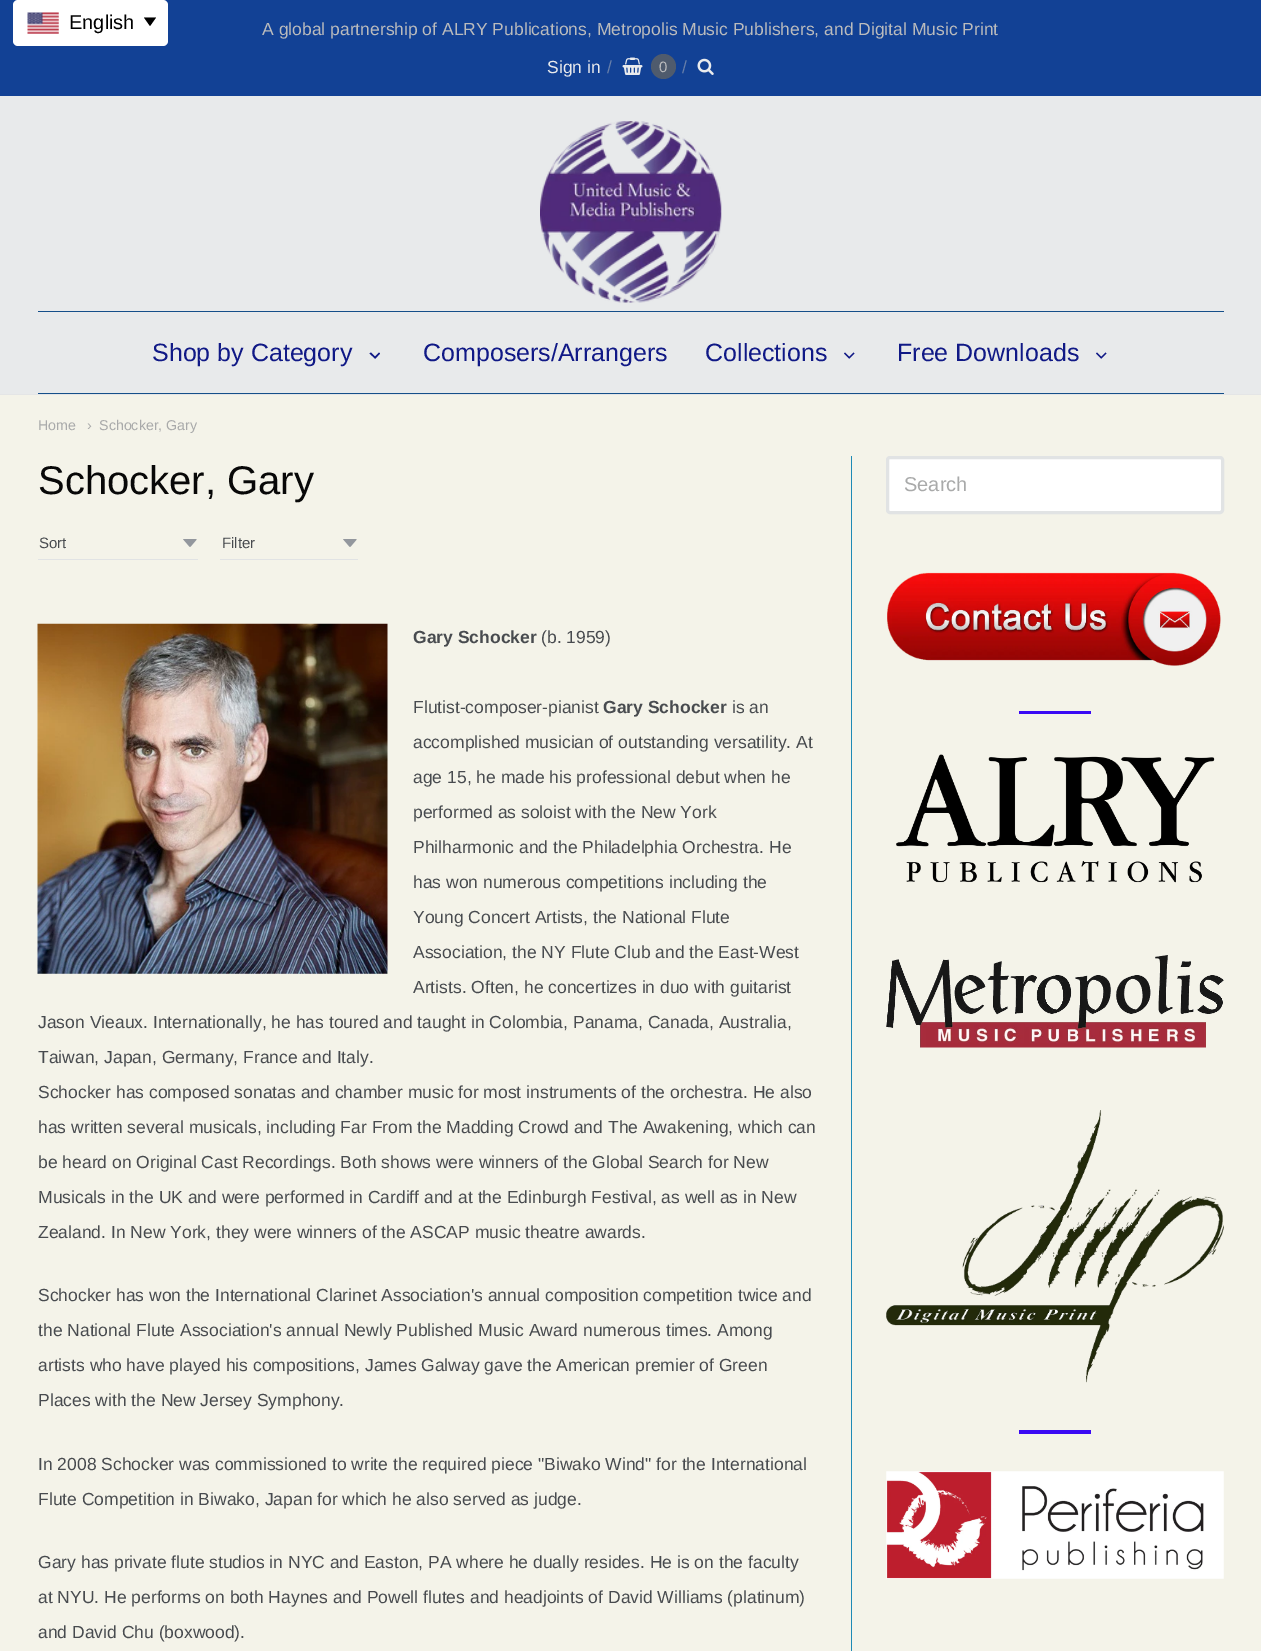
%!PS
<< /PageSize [1261 1651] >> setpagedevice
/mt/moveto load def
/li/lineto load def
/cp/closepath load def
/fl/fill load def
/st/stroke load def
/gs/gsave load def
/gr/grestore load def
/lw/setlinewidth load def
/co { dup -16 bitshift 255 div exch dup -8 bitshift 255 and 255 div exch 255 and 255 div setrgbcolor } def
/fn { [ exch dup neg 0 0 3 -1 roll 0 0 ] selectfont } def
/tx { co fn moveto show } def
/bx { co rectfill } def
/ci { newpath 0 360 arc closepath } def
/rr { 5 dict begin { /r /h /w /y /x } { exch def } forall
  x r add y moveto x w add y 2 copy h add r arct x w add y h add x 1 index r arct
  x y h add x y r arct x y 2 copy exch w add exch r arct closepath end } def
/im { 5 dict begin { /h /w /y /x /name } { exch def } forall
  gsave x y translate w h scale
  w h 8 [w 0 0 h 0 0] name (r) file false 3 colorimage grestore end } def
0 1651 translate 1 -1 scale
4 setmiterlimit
0 0 1261 1651 16#124195 bx
16#FFFFFF co
13 0 155 46 5 rr fl
(media/1.raw) 27 12 32 22 im
16#000000 co
144 17.5 mt 156 17.5 li 150 26 li cp fl
(media/2.raw) 622 57 21 18 im
16#4F5B6D co
663.5 66.5 12.5 ci fl
(media/3.raw) 697 58 17 17 im
0 96 1261 298 16#E8EAEB bx
0 394 1261 1 16#E4E5E6 bx
(media/4.raw) 540 121 182 182 im
38 311 1186 1 16#154F89 bx
16#101986 co
379 352.5 mt 380 353.5 li 375.5 358.5 li 374 357.5 li cp fl
371 352.5 mt 376 357.5 li 375 358.5 li 369.5 353.5 li cp fl
853.5 352.5 mt 854.5 353.5 li 849.5 358.5 li 848.5 357.5 li cp fl
845 352.5 mt 850 357.5 li 849 358.5 li 844 353.5 li cp fl
1105.5 352.5 mt 1106.5 353.5 li 1101.5 358.5 li 1100.5 357.5 li cp fl
1097 352.5 mt 1102 357.5 li 1101 358.5 li 1096 353.5 li cp fl
38 393 1186 1 16#154F89 bx
0 395 1261 1256 16#F4F3E9 bx
(media/5.raw) 183 539 14 8 im
38 559 160 1 16#E1E3E4 bx
(media/5.raw) 343 539 14 8 im
220 559 138 1 16#E1E3E4 bx
(media/6.raw) 37 623 351 351 im
851 456 1 1195 16#1E8AB5 bx
16#FFFFFF co
887.5 457.5 335 55 2.5 rr gs fl gr
16#E1E3E4 co
3 lw
st
(media/7.raw) 887 572 334 94 im
1019 711 72 3 16#3A09F4 bx
(media/8.raw) 896 754 319 129 im
(media/9.raw) 886 955 338 93 im
(media/10.raw) 886 1110 338 273 im
1019 1430 72 4 16#3A09F4 bx
(media/11.raw) 886 1471 338 108 im
(English) 69 29 /LiberationSans-Regular 20 16#000000 tx
(A global partnership of ALRY Publications, Metropolis Music Publishers, and Digital Music Print) 262 35 /LiberationSans-Regular 17.5 16#BABBBD tx
(Sign in) 547 73 /LiberationSans-Regular 17.5 16#EAEBED tx
(/) 607 73 /LiberationSans-Regular 17.5 16#667EA9 tx
(0) 659 72 /LiberationSans-Regular 15 16#BABBBD tx
(/) 682 73 /LiberationSans-Regular 17.5 16#667EA9 tx
(Shop by Category) 152 361 /LiberationSans-Regular 25 16#101986 tx
(Composers/Arrangers) 423 361 /LiberationSans-Regular 25 16#101986 tx
(Collections) 705 361 /LiberationSans-Regular 25 16#101986 tx
(Free Downloads) 897 361 /LiberationSans-Regular 25 16#101986 tx
(Home) 38 430 /LiberationSans-Regular 14.25 16#A9AAAA tx
(›) 87 430 /LiberationSans-Regular 14.25 16#A9AAAA tx
(Schocker, Gary) 99 430 /LiberationSans-Regular 14.25 16#A9AAAA tx
(Schocker, Gary) 38 494 /LiberationSans-Regular 40 16#080808 tx
(Sort) 39 548 /LiberationSans-Regular 15 16#484B4F tx
(Filter) 222 548 /LiberationSans-Regular 15 16#484B4F tx
(Gary Schocker) 413 643 /LiberationSans-Bold 17.5 16#484B4F tx
(\(b. 1959\)) 541 643 /LiberationSans-Regular 17.5 16#484B4F tx
(Flutist-composer-pianist) 413 713 /LiberationSans-Regular 17.5 16#484B4F tx
(Gary Schocker) 603 713 /LiberationSans-Bold 17.5 16#484B4F tx
(is an) 732 713 /LiberationSans-Regular 17.5 16#484B4F tx
(accomplished musician of outstanding versatility. At) 413 748 /LiberationSans-Regular 17.5 16#484B4F tx
(age 15, he made his professional debut when he) 413 783 /LiberationSans-Regular 17.5 16#484B4F tx
(performed as soloist with the New York) 413 818 /LiberationSans-Regular 17.5 16#484B4F tx
(Philharmonic and the Philadelphia Orchestra. He) 413 853 /LiberationSans-Regular 17.5 16#484B4F tx
(has won numerous competitions including the) 413 888 /LiberationSans-Regular 17.5 16#484B4F tx
(Young Concert Artists, the National Flute) 413 923 /LiberationSans-Regular 17.5 16#484B4F tx
(Association, the NY Flute Club and the East-West) 413 958 /LiberationSans-Regular 17.5 16#484B4F tx
(Artists. Often, he concertizes in duo with guitarist) 413 993 /LiberationSans-Regular 17.5 16#484B4F tx
(Jason Vieaux. Internationally, he has toured and taught in Colombia, Panama, Canada, Australia,) 38 1028 /LiberationSans-Regular 17.5 16#484B4F tx
(Taiwan, Japan, Germany, France and Italy.) 38 1063 /LiberationSans-Regular 17.5 16#484B4F tx
(Schocker has composed sonatas and chamber music for most instruments of the orchestra. He also) 38 1098 /LiberationSans-Regular 17.5 16#484B4F tx
(has written several musicals, including Far From the Madding Crowd and The Awakening, which can) 38 1133 /LiberationSans-Regular 17.5 16#484B4F tx
(be heard on Original Cast Recordings. Both shows were winners of the Global Search for New) 38 1168 /LiberationSans-Regular 17.5 16#484B4F tx
(Musicals in the UK and were performed in Cardiff and at the Edinburgh Festival, as well as in New) 38 1203 /LiberationSans-Regular 17.5 16#484B4F tx
(Zealand. In New York, they were winners of the ASCAP music theatre awards.) 38 1238 /LiberationSans-Regular 17.5 16#484B4F tx
(Schocker has won the International Clarinet Association's annual composition competition twice and) 38 1301 /LiberationSans-Regular 17.5 16#484B4F tx
(the National Flute Association's annual Newly Published Music Award numerous times. Among) 38 1336 /LiberationSans-Regular 17.5 16#484B4F tx
(artists who have played his compositions, James Galway gave the American premier of Green) 38 1371 /LiberationSans-Regular 17.5 16#484B4F tx
(Places with the New Jersey Symphony.) 38 1406 /LiberationSans-Regular 17.5 16#484B4F tx
(In 2008 Schocker was commissioned to write the required piece "Biwako Wind" for the International) 38 1470 /LiberationSans-Regular 17.5 16#484B4F tx
(Flute Competition in Biwako, Japan for which he also served as judge.) 38 1505 /LiberationSans-Regular 17.5 16#484B4F tx
(Gary has private flute studios in NYC and Easton, PA where he dually resides. He is on the faculty) 38 1568 /LiberationSans-Regular 17.5 16#484B4F tx
(at NYU. He performs on both Haynes and Powell flutes and headjoints of David Williams \(platinum\)) 38 1603 /LiberationSans-Regular 17.5 16#484B4F tx
(and David Chu \(boxwood\).) 38 1638 /LiberationSans-Regular 17.5 16#484B4F tx
(Search) 904 491 /LiberationSans-Regular 20 16#A9AAAA tx
showpage
